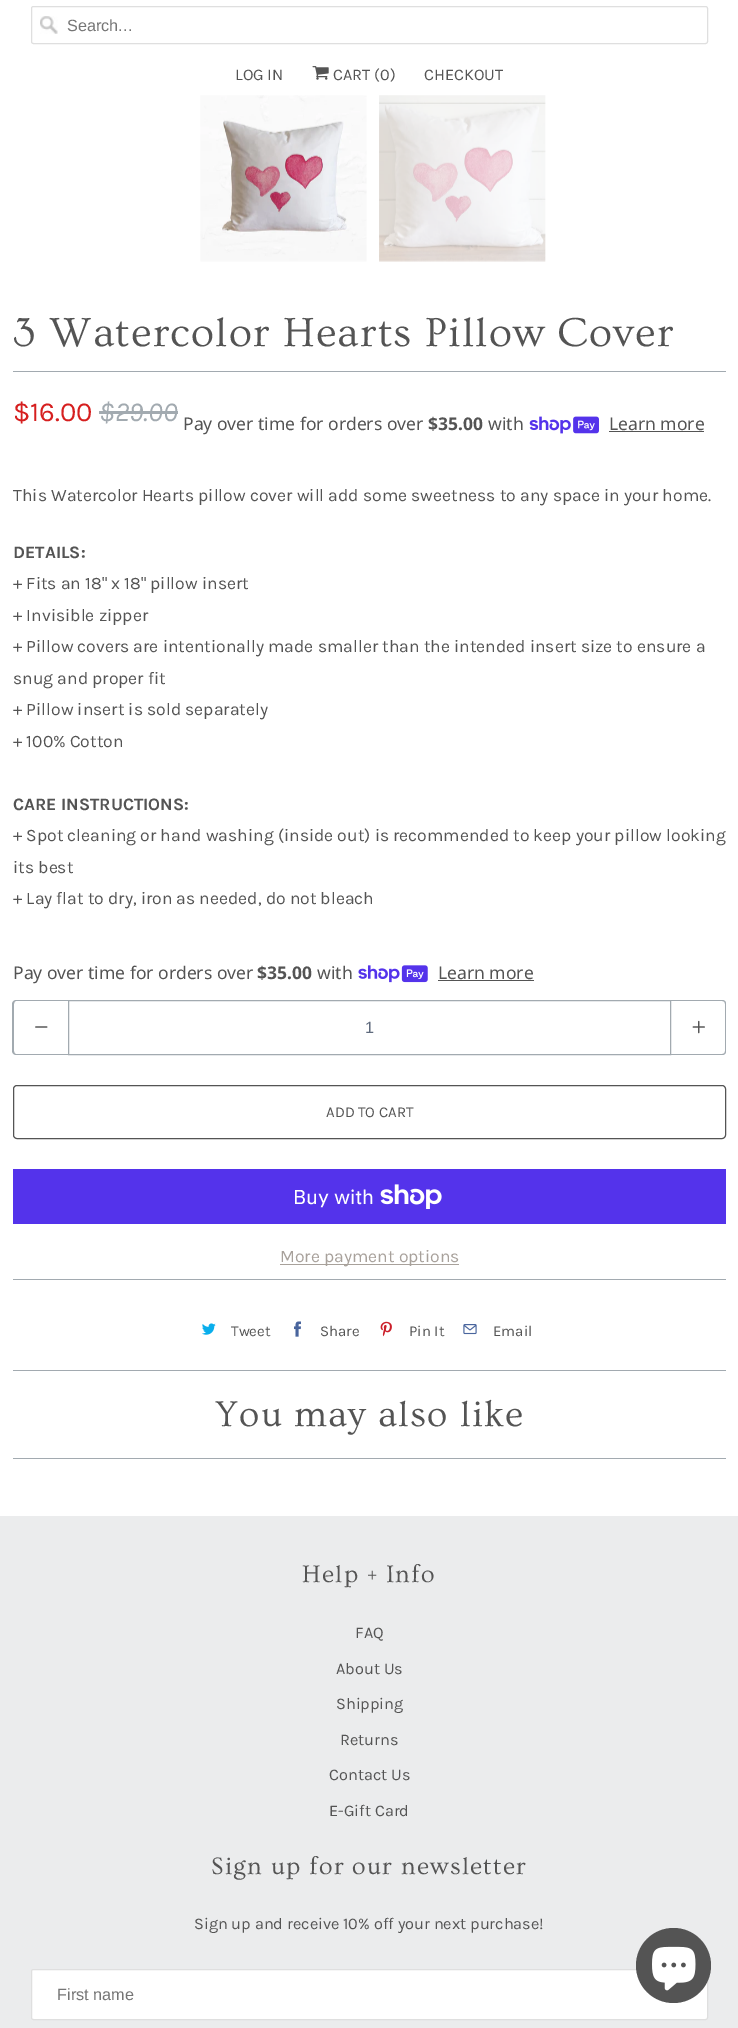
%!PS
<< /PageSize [738 2028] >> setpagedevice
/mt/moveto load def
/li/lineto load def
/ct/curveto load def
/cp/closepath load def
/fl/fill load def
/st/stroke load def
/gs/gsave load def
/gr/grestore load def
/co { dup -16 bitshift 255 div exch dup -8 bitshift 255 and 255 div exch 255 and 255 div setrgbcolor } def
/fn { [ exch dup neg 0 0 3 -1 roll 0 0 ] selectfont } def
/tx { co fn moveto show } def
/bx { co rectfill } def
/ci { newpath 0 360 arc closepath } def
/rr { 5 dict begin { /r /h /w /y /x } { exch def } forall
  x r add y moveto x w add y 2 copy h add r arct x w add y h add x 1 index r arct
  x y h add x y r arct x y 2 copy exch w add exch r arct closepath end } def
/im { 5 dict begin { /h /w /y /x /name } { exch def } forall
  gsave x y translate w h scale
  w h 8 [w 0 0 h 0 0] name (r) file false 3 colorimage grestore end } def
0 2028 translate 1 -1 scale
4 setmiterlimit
0 0 738 2028 16#FFFFFF bx
(media/1.raw) 40 16 18 18 im
16#DFDFDF co
31.5 6.5 676 37 2 rr st
(media/2.raw) 312 66 17 14 im
(media/3.raw) 200 95 167 167 im
(media/4.raw) 379 95 167 167 im
13 371 713 1 16#A2AAB0 bx
99 411 79 3 16#A2AAB0 bx
(media/5.raw) 529 416 70 18 im
609 431 95 1 16#545454 bx
(media/6.raw) 358 965 70 18 im
438 980 96 1 16#545454 bx
16#A2AAB0 co
16 1000 mt 68 1000 li 68 1055 li 16 1055 li 14 1055 12 1053 12 1051 ct 12 1004 li 12 1002 14 1000 16 1000 ct cp 16 1001 mt 68 1001 li 68 1054 li 16 1054 li 15 1054 14 1053 14 1051 ct 14 1004 li 14 1002 15 1001 16 1001 ct cp eofill
(media/7.raw) 35 1026 13 2 im
68.5 1000.5 602 54 rectstroke
671 1000 mt 722 1000 li 725 1000 726 1002 726 1004 ct 726 1051 li 726 1053 725 1055 722 1055 ct 671 1055 li cp 671 1001 mt 722 1001 li 724 1001 725 1002 725 1004 ct 725 1051 li 725 1053 724 1054 722 1054 ct 671 1054 li cp eofill
(media/8.raw) 692 1020 13 14 im
16#545454 co
13.5 1085.5 712 53 3.5 rr st
13 1169 713 55 16#5433EB bx
(media/9.raw) 380 1184 62 25 im
280 1264 179 1 16#A8A19B bx
13 1279 713 1 16#A2AAB0 bx
(media/10.raw) 202 1323 14 12 im
(media/11.raw) 294 1321 7 16 im
(media/12.raw) 380 1321 12 16 im
(media/13.raw) 463 1324 14 11 im
13 1370 713 1 16#A2AAB0 bx
13 1458 713 1 16#A2AAB0 bx
0 1516 738 512 16#EBECED bx
16#FFFFFF co
31.5 1969.5 676 50 2 rr gs fl gr
16#DFDFDF co
st
16#545454 co
673.5 1965.5 37.5 ci fl
(media/14.raw) 652 1946 44 45 im
(Search...) 67 31 /LiberationSans-Regular 16.25 16#757575 tx
(LOG IN) 235 80 /Karla-Regular 16.25 16#545454 tx
(CART \(0\)) 333 80 /Karla-Regular 16.25 16#545454 tx
(CHECKOUT) 424 80 /Karla-Regular 16.25 16#545454 tx
/Ovo-Regular 42.5 fn
13 346 mt 1.25 0 (3 Watercolor Hearts Pillow Cover) ashow
($16.00) 13 421 /Karla-Regular 27.5 16#D61F1F tx
($29.00) 99 421 /Karla-Italic 27.5 16#A2AAB0 tx
(Pay over time for orders over) 183 430 /NotoSans-Regular 17.5 16#545454 tx
($35.00) 428 430 /NotoSans-Bold 17.5 16#545454 tx
(with) 488 430 /NotoSans-Regular 17.5 16#545454 tx
(Learn more) 609 430 /NotoSans-Regular 17.5 16#545454 tx
(This Watercolor Hearts pillow cover will add some sweetness to any space in your home.) 13 501 /Karla-Regular 17.5 16#545454 tx
(DETAILS:) 13 558 /Karla-Bold 17.5 16#545454 tx
(+ Fits an 18" x 18" pillow insert) 13 589 /Karla-Regular 17.5 16#545454 tx
(+ Invisible zipper) 13 621 /Karla-Regular 17.5 16#545454 tx
(+ Pillow covers are intentionally made smaller than the intended insert size to ensure a) 13 652 /Karla-Regular 17.5 16#545454 tx
(snug and proper fit) 13 684 /Karla-Regular 17.5 16#545454 tx
(+ Pillow insert is sold separately) 13 715 /Karla-Regular 17.5 16#545454 tx
(+ 100% Cotton) 13 747 /Karla-Regular 17.5 16#545454 tx
(CARE INSTRUCTIONS:) 13 810 /Karla-Bold 17.5 16#545454 tx
(+ Spot cleaning or hand washing \(inside out\) is recommended to keep your pillow looking) 13 841 /Karla-Regular 17.5 16#545454 tx
(its best) 13 873 /Karla-Regular 17.5 16#545454 tx
(+ Lay flat to dry, iron as needed, do not bleach) 13 904 /Karla-Regular 17.5 16#545454 tx
(Pay over time for orders over) 13 979 /NotoSans-Regular 17.5 16#545454 tx
($35.00) 257 979 /NotoSans-Bold 17.5 16#545454 tx
(with) 317 979 /NotoSans-Regular 17.5 16#545454 tx
(Learn more) 438 979 /NotoSans-Regular 17.5 16#545454 tx
(1) 365 1033 /LiberationSans-Regular 16.25 16#5F6A7D tx
(ADD TO CART) 326 1117 /Karla-Regular 15 16#545454 tx
(Buy with) 293 1204 /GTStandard-Regular 20 16#FFFFFF tx
(More payment options) 280 1262 /Karla-Regular 17.5 16#A8A19B tx
(Tweet) 231 1336 /Karla-Regular 15 16#545454 tx
(Share) 320 1336 /Karla-Regular 15 16#545454 tx
(Pin It) 409 1336 /Karla-Regular 15 16#545454 tx
(Email) 493 1336 /Karla-Regular 15 16#545454 tx
/Ovo-Regular 37.5 fn
215 1426 mt 1.25 0 (You may also like) ashow
/Ovo-Regular 25 fn
302 1582 mt 1.25 0 (Help + Info) ashow
(FAQ) 355 1638 /Karla-Regular 16.25 16#545454 tx
(About Us) 336 1674 /Karla-Regular 16.25 16#545454 tx
(Shipping) 336 1709 /Karla-Regular 16.25 16#545454 tx
(Returns) 340 1745 /Karla-Regular 16.25 16#545454 tx
(Contact Us) 329 1780 /Karla-Regular 16.25 16#545454 tx
(E-Gift Card) 329 1816 /Karla-Regular 16.25 16#545454 tx
/Ovo-Regular 25 fn
211 1874 mt 1.25 0 (Sign up for our newsletter) ashow
(Sign up and receive 10% off your next purchase!) 194 1929 /Karla-Regular 16.25 16#545454 tx
(First name) 57 2000 /LiberationSans-Regular 16.25 16#757575 tx
showpage
